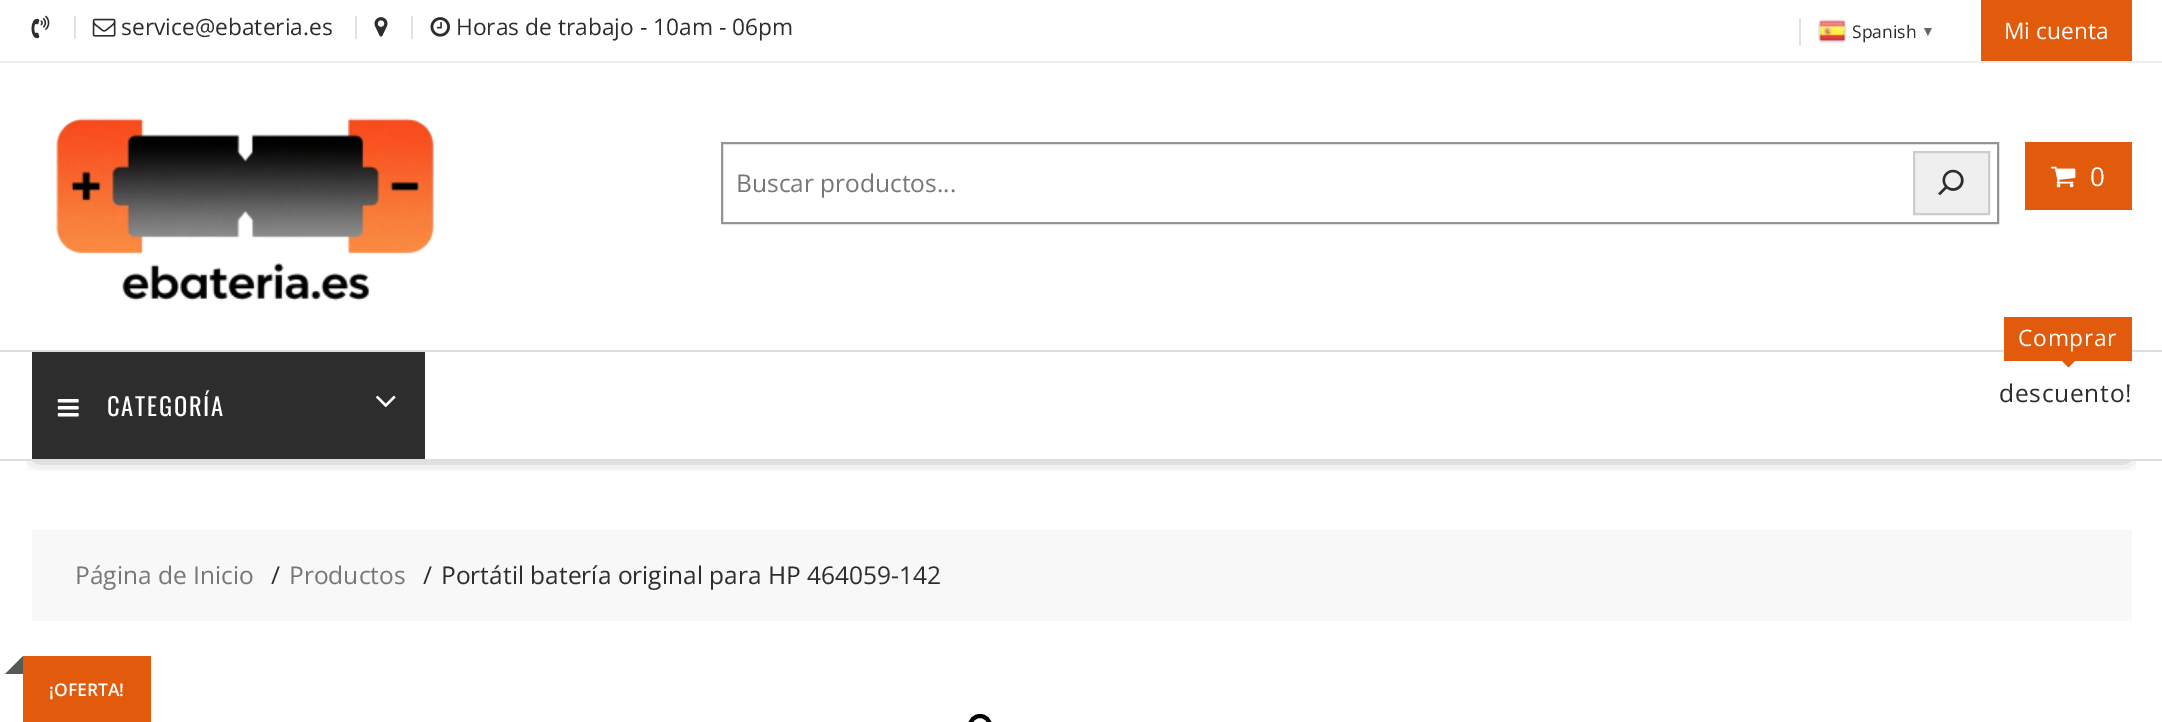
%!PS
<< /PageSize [2162 722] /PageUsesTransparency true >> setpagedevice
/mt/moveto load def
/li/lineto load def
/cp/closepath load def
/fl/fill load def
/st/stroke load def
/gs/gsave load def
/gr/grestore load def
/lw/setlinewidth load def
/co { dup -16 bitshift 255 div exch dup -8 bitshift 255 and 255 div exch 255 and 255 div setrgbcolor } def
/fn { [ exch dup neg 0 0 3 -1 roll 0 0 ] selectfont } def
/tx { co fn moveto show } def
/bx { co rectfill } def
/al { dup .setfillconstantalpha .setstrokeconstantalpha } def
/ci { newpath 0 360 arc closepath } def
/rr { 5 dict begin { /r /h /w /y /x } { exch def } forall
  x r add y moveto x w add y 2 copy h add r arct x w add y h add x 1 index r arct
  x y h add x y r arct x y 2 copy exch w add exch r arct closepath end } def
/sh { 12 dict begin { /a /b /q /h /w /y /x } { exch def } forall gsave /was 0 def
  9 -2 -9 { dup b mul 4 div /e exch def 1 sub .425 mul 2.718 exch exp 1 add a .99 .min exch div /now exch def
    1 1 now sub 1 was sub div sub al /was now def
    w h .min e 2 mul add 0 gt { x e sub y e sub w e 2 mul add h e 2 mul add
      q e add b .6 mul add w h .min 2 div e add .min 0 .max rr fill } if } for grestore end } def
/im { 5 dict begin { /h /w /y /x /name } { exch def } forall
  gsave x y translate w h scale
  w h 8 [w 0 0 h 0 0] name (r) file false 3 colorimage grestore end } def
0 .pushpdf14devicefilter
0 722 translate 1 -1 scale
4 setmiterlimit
0 0 2162 722 16#FFFFFF bx
0 61 2162 2 16#EEEEEE bx
(media/1.raw) 31 15 19 24 im
74 16 2 23 16#E2E2E4 bx
(media/2.raw) 92 18 24 19 im
355 16 2 23 16#E2E2E4 bx
(media/3.raw) 374 17 14 20 im
411 16 2 23 16#E2E2E4 bx
(media/4.raw) 430 17 20 20 im
1799 18 2 28 16#E2E2E4 bx
(media/5.raw) 1818 19 29 25 im
1981 0 151 61 16#E25A0B bx
(media/6.raw) 56 118 378 183 im
16#949494 co
2 lw
722 143 1276 80 rectstroke
16#EFEFEF co
1914 152 mt 1989 152 li 1989 214 li 1914 214 li cp gs fl gr
16#CCCCCC co
st
(media/7.raw) 1938 169 26 27 im
2025 142 107 68 16#E25A0B bx
(media/8.raw) 2051 166 25 22 im
gs
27 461 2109 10 rectclip
16#000000 co
37 417 2089 36 0 9.5 .75 sh
gr
0 350 2162 2 16#DEDEDE bx
0 459 2162 2 16#DEDEDE bx
32 352 393 107 16#2D2D2D bx
(media/9.raw) 57 399 22 18 im
(media/10.raw) 376 395 20 13 im
2004 317 128 44 16#E25A0B bx
2060 359 mt 2077 359 li 2068.5 367.5 li cp fl
32 530 2100 91 16#F8F8F8 bx
23 656 128 66 16#E25A0B bx
16#565955 co
23 656 mt 23 674 li 5 674 li cp fl
16#000000 co
4 lw
980 726 10 ci st
(service@ebateria.es) 121 35 /OpenSans-Regular 22.75 16#2D2D2D tx
(Horas de trabajo - 10am - 06pm) 456 35 /OpenSans-Regular 22.75 16#2D2D2D tx
(Spanish) 1852 38 /OpenSans-Regular 17.5 16#2D2D2D tx
(▼) 1921 36 /LiberationSans-Bold 14 16#666666 tx
(Mi cuenta) 2004 39 /OpenSans-Regular 22.75 16#FFFFFF tx
(Buscar productos...) 736 192 /OpenSans-Regular 24.5 16#777777 tx
(0) 2090 186 /OpenSans-Regular 26 16#FFFFFF tx
/Oswald-Regular 24.5 fn
107 416 mt 1.75 0 (CATEGORÍA) ashow
/OpenSans-Regular 22.75 fn
2018 346 mt .75 0 (Comprar) ashow
/OpenSans-Regular 24.5 fn
16#2D2D2D co
1999 402 mt .75 0 (descuento!) ashow
(Página de Inicio) 75 584 /OpenSans-Regular 24.5 16#777777 tx
(/) 271 584 /OpenSans-Regular 24.5 16#2D2D2D tx
(Productos) 289 584 /OpenSans-Regular 24.5 16#777777 tx
(/) 423 584 /OpenSans-Regular 24.5 16#2D2D2D tx
(Portátil batería original para HP 464059-142) 441 584 /OpenSans-Regular 24.5 16#2D2D2D tx
(¡OFERTA!) 49 696 /OpenSans-SemiBold 17.5 16#FFFFFF tx
.poppdf14devicefilter showpage
